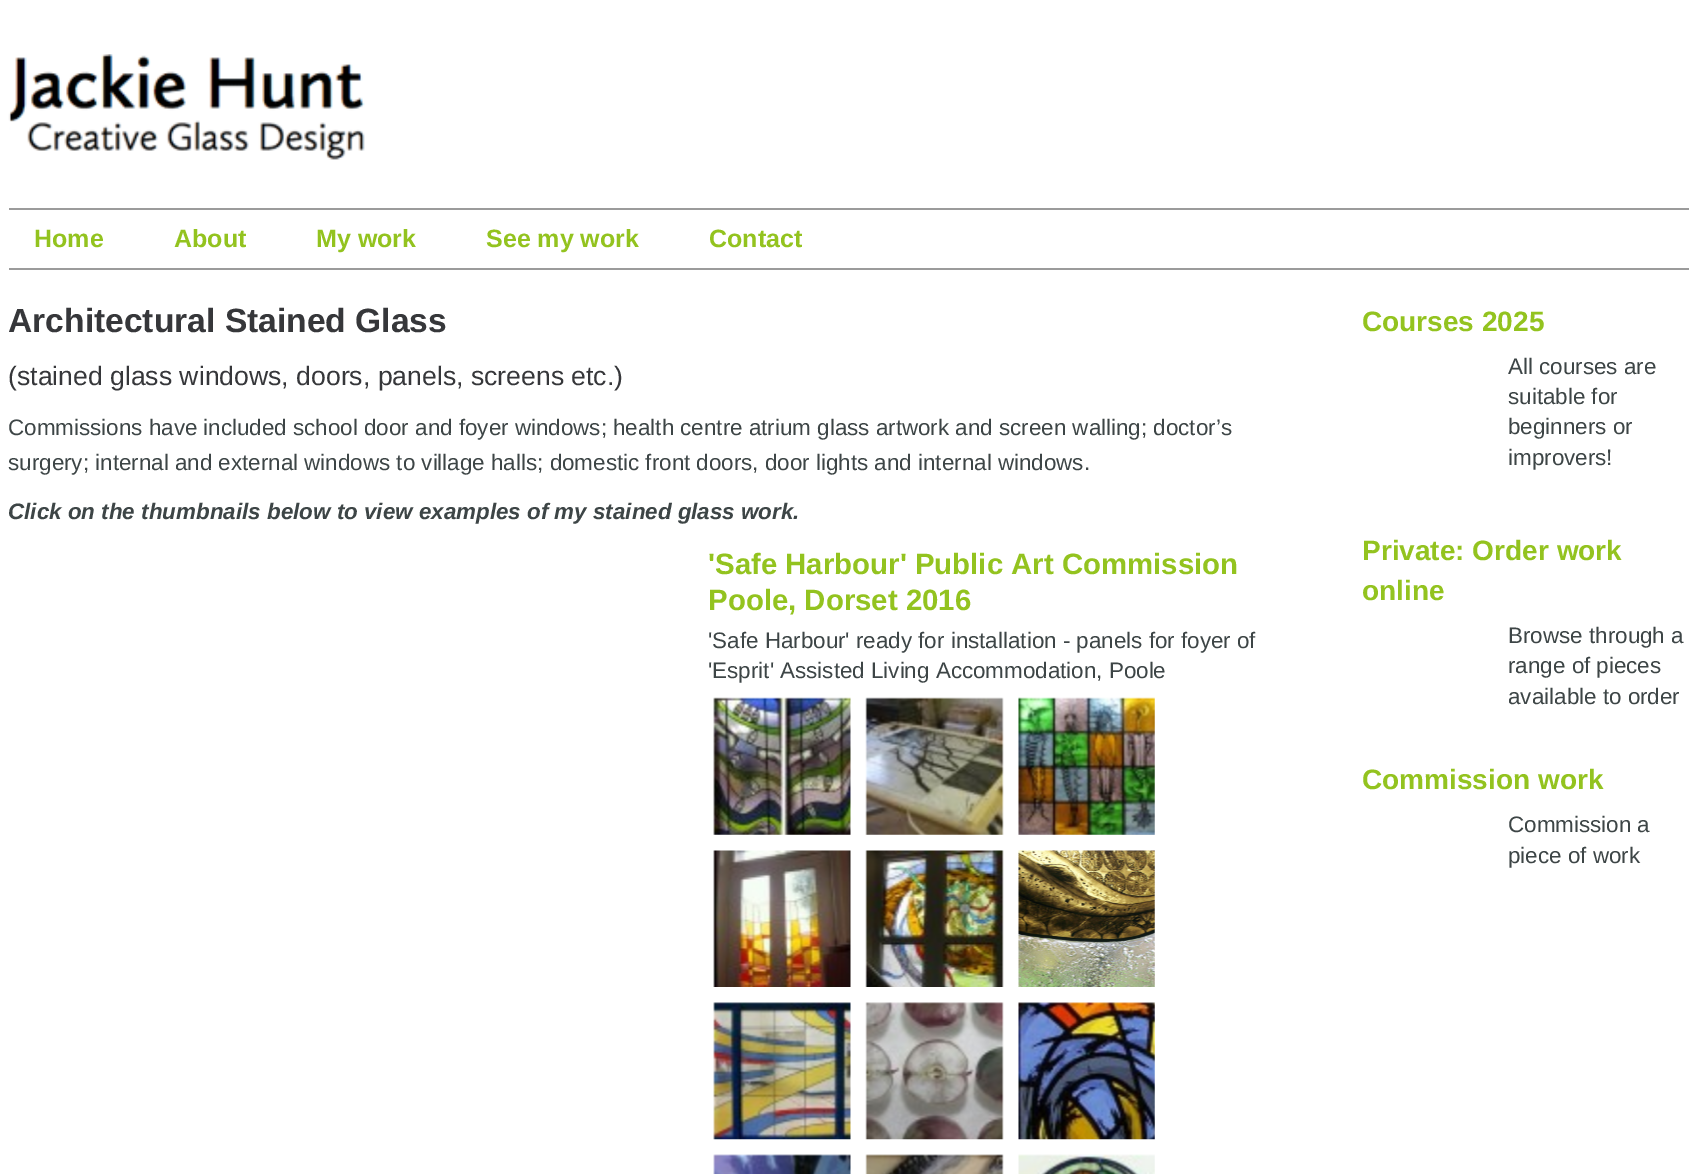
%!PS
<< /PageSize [1695 1174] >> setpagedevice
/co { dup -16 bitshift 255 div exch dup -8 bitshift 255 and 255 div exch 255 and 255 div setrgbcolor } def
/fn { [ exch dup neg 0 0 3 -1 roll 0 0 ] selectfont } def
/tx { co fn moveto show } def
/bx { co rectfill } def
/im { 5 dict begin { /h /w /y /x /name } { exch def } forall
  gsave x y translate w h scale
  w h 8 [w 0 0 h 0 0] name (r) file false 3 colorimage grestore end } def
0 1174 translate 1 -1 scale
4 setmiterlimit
0 0 1695 1174 16#FFFFFF bx
(media/1.raw) 8 54 357 106 im
9 208 1680 2 16#9B9B9B bx
9 268 1680 2 16#9B9B9B bx
(media/2.raw) 713 697 138 138 im
(media/3.raw) 865 697 139 138 im
(media/4.raw) 1018 697 137 138 im
(media/5.raw) 713 850 138 137 im
(media/6.raw) 865 850 139 137 im
(media/7.raw) 1018 850 137 137 im
(media/8.raw) 713 1002 138 138 im
(media/9.raw) 865 1002 139 138 im
(media/10.raw) 1018 1002 137 138 im
(media/11.raw) 713 1154 138 20 im
(media/12.raw) 865 1154 139 20 im
(media/13.raw) 1018 1154 137 20 im
(Home) 34 247 /LiberationSans-Bold 25 16#93C31F tx
(About) 174 247 /LiberationSans-Bold 25 16#93C31F tx
(My work) 316 247 /LiberationSans-Bold 25 16#93C31F tx
(See my work) 486 247 /LiberationSans-Bold 25 16#93C31F tx
(Contact) 709 247 /LiberationSans-Bold 25 16#93C31F tx
(Architectural Stained Glass) 8 332 /LiberationSans-Bold 33.6 16#36373A tx
(\(stained glass windows, doors, panels, screens etc.\)) 8 385 /LiberationSans-Regular 26.6 16#36373A tx
(Commissions have included school door and foyer windows; health centre atrium glass artwork and screen walling; doctor’s) 8 435 /LiberationSans-Regular 22.4 16#3D4546 tx
(surgery; internal and external windows to village halls; domestic front doors, door lights and internal windows.) 8 470 /LiberationSans-Regular 22.4 16#3D4546 tx
(Click on the thumbnails below to view examples of my stained glass work.) 8 519 /LiberationSans-BoldItalic 22.4 16#3D4546 tx
('Safe Harbour' Public Art Commission) 708 574 /LiberationSans-Bold 29.4 16#93C31F tx
(Poole, Dorset 2016) 708 610 /LiberationSans-Bold 29.4 16#93C31F tx
('Safe Harbour' ready for installation - panels for foyer of) 708 648 /LiberationSans-Regular 22.4 16#3D4546 tx
('Esprit' Assisted Living Accommodation, Poole) 708 678 /LiberationSans-Regular 22.4 16#3D4546 tx
(Courses 2025) 1362 331 /LiberationSans-Bold 28 16#93C31F tx
(All courses are) 1508 374 /LiberationSans-Regular 22.4 16#3D4546 tx
(suitable for) 1508 404 /LiberationSans-Regular 22.4 16#3D4546 tx
(beginners or) 1508 434 /LiberationSans-Regular 22.4 16#3D4546 tx
(improvers!) 1508 465 /LiberationSans-Regular 22.4 16#3D4546 tx
(Private: Order work) 1362 560 /LiberationSans-Bold 28 16#93C31F tx
(online) 1362 600 /LiberationSans-Bold 28 16#93C31F tx
(Browse through a) 1508 643 /LiberationSans-Regular 22.4 16#3D4546 tx
(range of pieces) 1508 673 /LiberationSans-Regular 22.4 16#3D4546 tx
(available to order) 1508 704 /LiberationSans-Regular 22.4 16#3D4546 tx
(Commission work) 1362 789 /LiberationSans-Bold 28 16#93C31F tx
(Commission a) 1508 832 /LiberationSans-Regular 22.4 16#3D4546 tx
(piece of work) 1508 863 /LiberationSans-Regular 22.4 16#3D4546 tx
showpage
